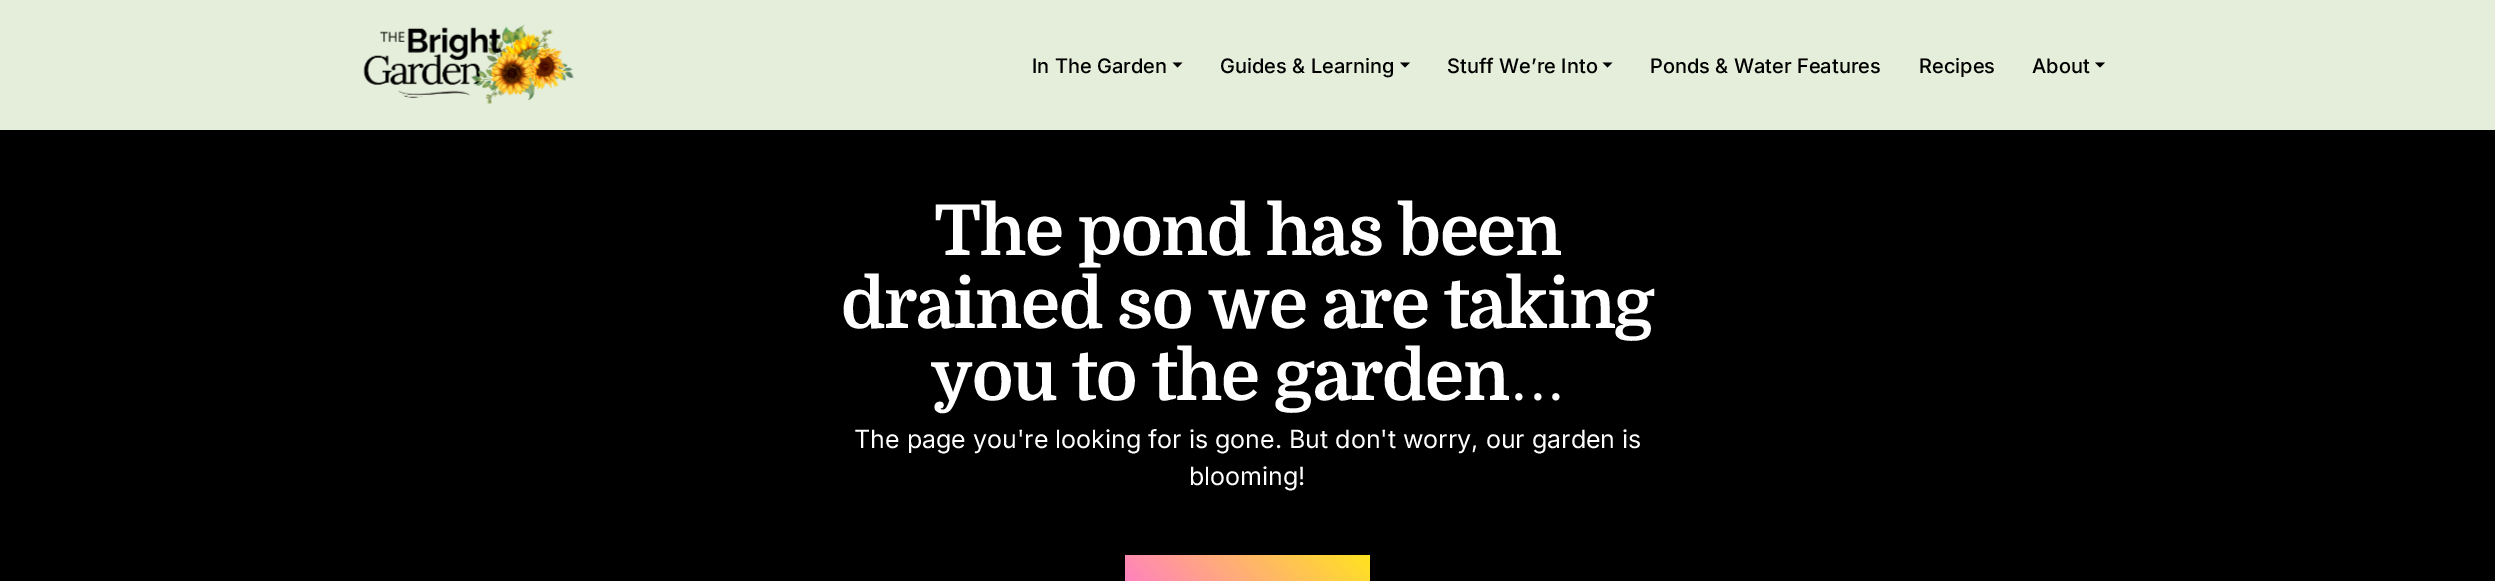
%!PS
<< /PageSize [2495 581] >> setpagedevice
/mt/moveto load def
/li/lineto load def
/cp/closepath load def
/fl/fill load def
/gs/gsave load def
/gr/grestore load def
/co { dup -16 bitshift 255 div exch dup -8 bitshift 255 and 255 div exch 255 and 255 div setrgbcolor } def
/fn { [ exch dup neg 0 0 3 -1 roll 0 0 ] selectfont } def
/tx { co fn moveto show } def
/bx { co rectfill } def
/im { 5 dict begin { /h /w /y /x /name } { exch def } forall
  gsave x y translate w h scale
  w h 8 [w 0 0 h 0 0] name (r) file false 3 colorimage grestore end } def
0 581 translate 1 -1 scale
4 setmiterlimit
0 0 2495 581 16#000000 bx
0 0 2495 130 16#E5EEDA bx
(media/1.raw) 363 24 211 81 im
16#000000 co
1172.5 62.5 mt 1182.5 62.5 li 1177.5 67.5 li cp fl
1400 62.5 mt 1410 62.5 li 1405 67.5 li cp fl
1602.5 62.5 mt 1612.5 62.5 li 1607.5 67.5 li cp fl
2095 62.5 mt 2105 62.5 li 2100 67.5 li cp fl
gs 1125 555 mt 1370 555 li 1370 581 li 1125 581 li cp clip newpath
<< /ShadingType 2 /ColorSpace /DeviceRGB /Coords [1167 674 1328 513] /Extend [true true] /Function << /FunctionType 2 /Domain [0 1] /C0 [1 .439 .863] /C1 [1 .89 .122] /N 1 >> >> shfill gr
(In The Garden) 1032 73 /Inter-Medium 20 16#000000 tx
(Guides & Learning) 1220 73 /Inter-Medium 20 16#000000 tx
(Stuff We’re Into) 1447 73 /Inter-Medium 20 16#000000 tx
(Ponds & Water Features) 1650 73 /Inter-Medium 20 16#000000 tx
(Recipes) 1919 73 /Inter-Medium 20 16#000000 tx
(About) 2032 73 /Inter-Medium 20 16#000000 tx
/Domine-Bold 70 fn
16#FFFFFF co
934 255 mt -1.25 0 (The pond has been) ashow
841 328 mt -1.25 0 (drained so we are taking) ashow
931 400 mt -1.25 0 (you to the garden) ashow
/Inter-Light 70 fn
1509 400 mt -1.25 0 (...) ashow
(The page you're looking for is gone. But don't worry, our garden is) 854 448 /Inter-Regular 25 16#FFFFFF tx
(blooming!) 1189 485 /Inter-Regular 25 16#FFFFFF tx
showpage
